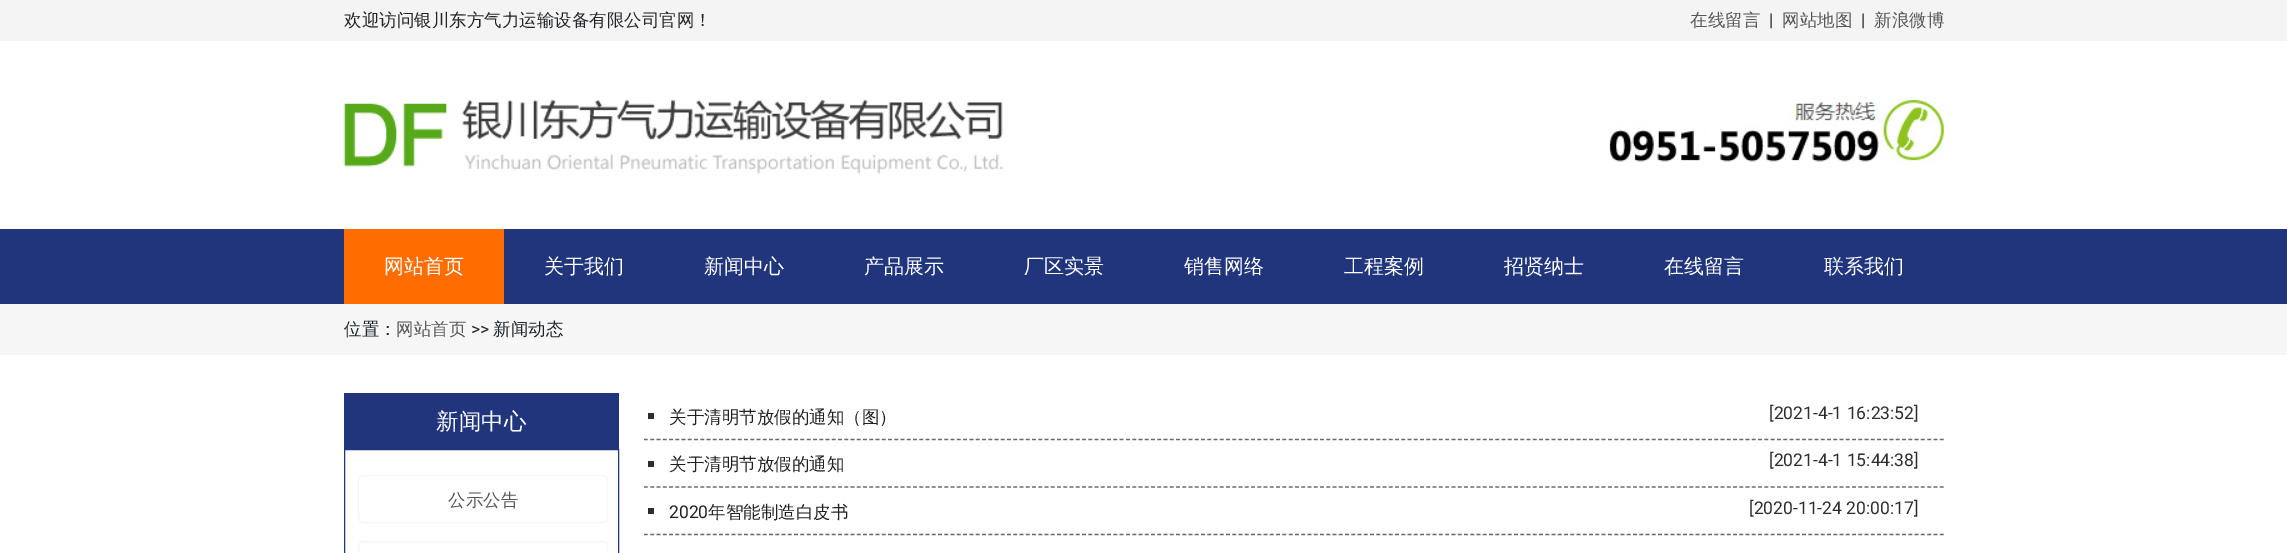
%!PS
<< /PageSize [2287 553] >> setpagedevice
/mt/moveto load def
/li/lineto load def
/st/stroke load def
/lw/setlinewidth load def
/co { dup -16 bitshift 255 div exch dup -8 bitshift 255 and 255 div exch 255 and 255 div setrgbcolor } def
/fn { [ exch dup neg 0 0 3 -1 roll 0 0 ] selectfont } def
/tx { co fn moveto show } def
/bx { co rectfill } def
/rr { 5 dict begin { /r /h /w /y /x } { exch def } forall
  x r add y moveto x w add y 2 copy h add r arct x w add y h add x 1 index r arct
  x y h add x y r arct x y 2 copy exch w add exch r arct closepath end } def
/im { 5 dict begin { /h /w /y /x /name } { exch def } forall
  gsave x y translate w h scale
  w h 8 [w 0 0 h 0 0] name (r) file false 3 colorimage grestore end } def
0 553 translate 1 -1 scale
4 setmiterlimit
0 0 2287 553 16#FFFFFF bx
0 0 2287 41 16#F4F4F4 bx
(media/1.raw) 343 99 660 75 im
(media/2.raw) 1609 94 335 69 im
0 229 2287 75 16#21357C bx
344 229 160 75 16#FF6D00 bx
0 304 2287 51 16#F6F6F6 bx
344 393 275 56 16#21357C bx
344.5 449.5 274 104 rectstroke
16#F6F6F6 co
358.5 475.5 249 47 4.5 rr st
358.5 541.5 249 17 4.5 rr st
16#6A6A6A co
1.2 lw
[3.75 2.51] 0 setdash
644 439.5 mt 1944 439.5 li st
648 413 6 6 16#2D2D2D bx
16#6A6A6A co
644 487 mt 1944 487 li st
648 461 6 6 16#2D2D2D bx
16#6A6A6A co
644 534.5 mt 1944 534.5 li st
648 508 6 6 16#2D2D2D bx
(欢迎访问银川东方气力运输设备有限公司官网！) 344 26 /WenQuanYiZenHei-Medium 17.5 16#212529 tx
(在线留言) 1690 26 /WenQuanYiZenHei-Medium 17.5 16#585858 tx
(|) 1769 26 /Roboto-Regular 17.5 16#212529 tx
(网站地图) 1782 26 /WenQuanYiZenHei-Medium 17.5 16#585858 tx
(|) 1861 26 /Roboto-Regular 17.5 16#212529 tx
(新浪微博) 1874 26 /WenQuanYiZenHei-Medium 17.5 16#585858 tx
(网站首页) 384 273 /WenQuanYiZenHei-Medium 20 16#FFFFFF tx
(关于我们) 544 273 /WenQuanYiZenHei-Medium 20 16#FFFFFF tx
(新闻中心) 704 273 /WenQuanYiZenHei-Medium 20 16#FFFFFF tx
(产品展示) 864 273 /WenQuanYiZenHei-Medium 20 16#FFFFFF tx
(厂区实景) 1024 273 /WenQuanYiZenHei-Medium 20 16#FFFFFF tx
(销售网络) 1184 273 /WenQuanYiZenHei-Medium 20 16#FFFFFF tx
(工程案例) 1344 273 /WenQuanYiZenHei-Medium 20 16#FFFFFF tx
(招贤纳士) 1504 273 /WenQuanYiZenHei-Medium 20 16#FFFFFF tx
(在线留言) 1664 273 /WenQuanYiZenHei-Medium 20 16#FFFFFF tx
(联系我们) 1824 273 /WenQuanYiZenHei-Medium 20 16#FFFFFF tx
(位置：) 344 335 /WenQuanYiZenHei-Medium 17.5 16#212529 tx
(网站首页) 396 335 /WenQuanYiZenHei-Medium 17.5 16#585858 tx
(>>) 471 335 /Roboto-Regular 17.5 16#212529 tx
(新闻动态) 493 335 /WenQuanYiZenHei-Medium 17.5 16#212529 tx
(新闻中心) 436 429 /WenQuanYiZenHei-Medium 22.5 16#FFFFFF tx
(公示公告) 448 506 /WenQuanYiZenHei-Medium 17.5 16#585858 tx
(关于清明节放假的通知（图）) 669 423 /WenQuanYiZenHei-Medium 17.5 16#212121 tx
([2021-4-1 16:23:52]) 1769 419 /Roboto-Regular 17.5 16#2D2D2D tx
(关于清明节放假的通知) 669 470 /WenQuanYiZenHei-Medium 17.5 16#212121 tx
([2021-4-1 15:44:38]) 1769 466 /Roboto-Regular 17.5 16#2D2D2D tx
(2020) 669 518 /Roboto-Regular 17.5 16#212121 tx
(年智能制造白皮书) 708 518 /WenQuanYiZenHei-Medium 17.5 16#212121 tx
([2020-11-24 20:00:17]) 1749 514 /Roboto-Regular 17.5 16#2D2D2D tx
showpage
